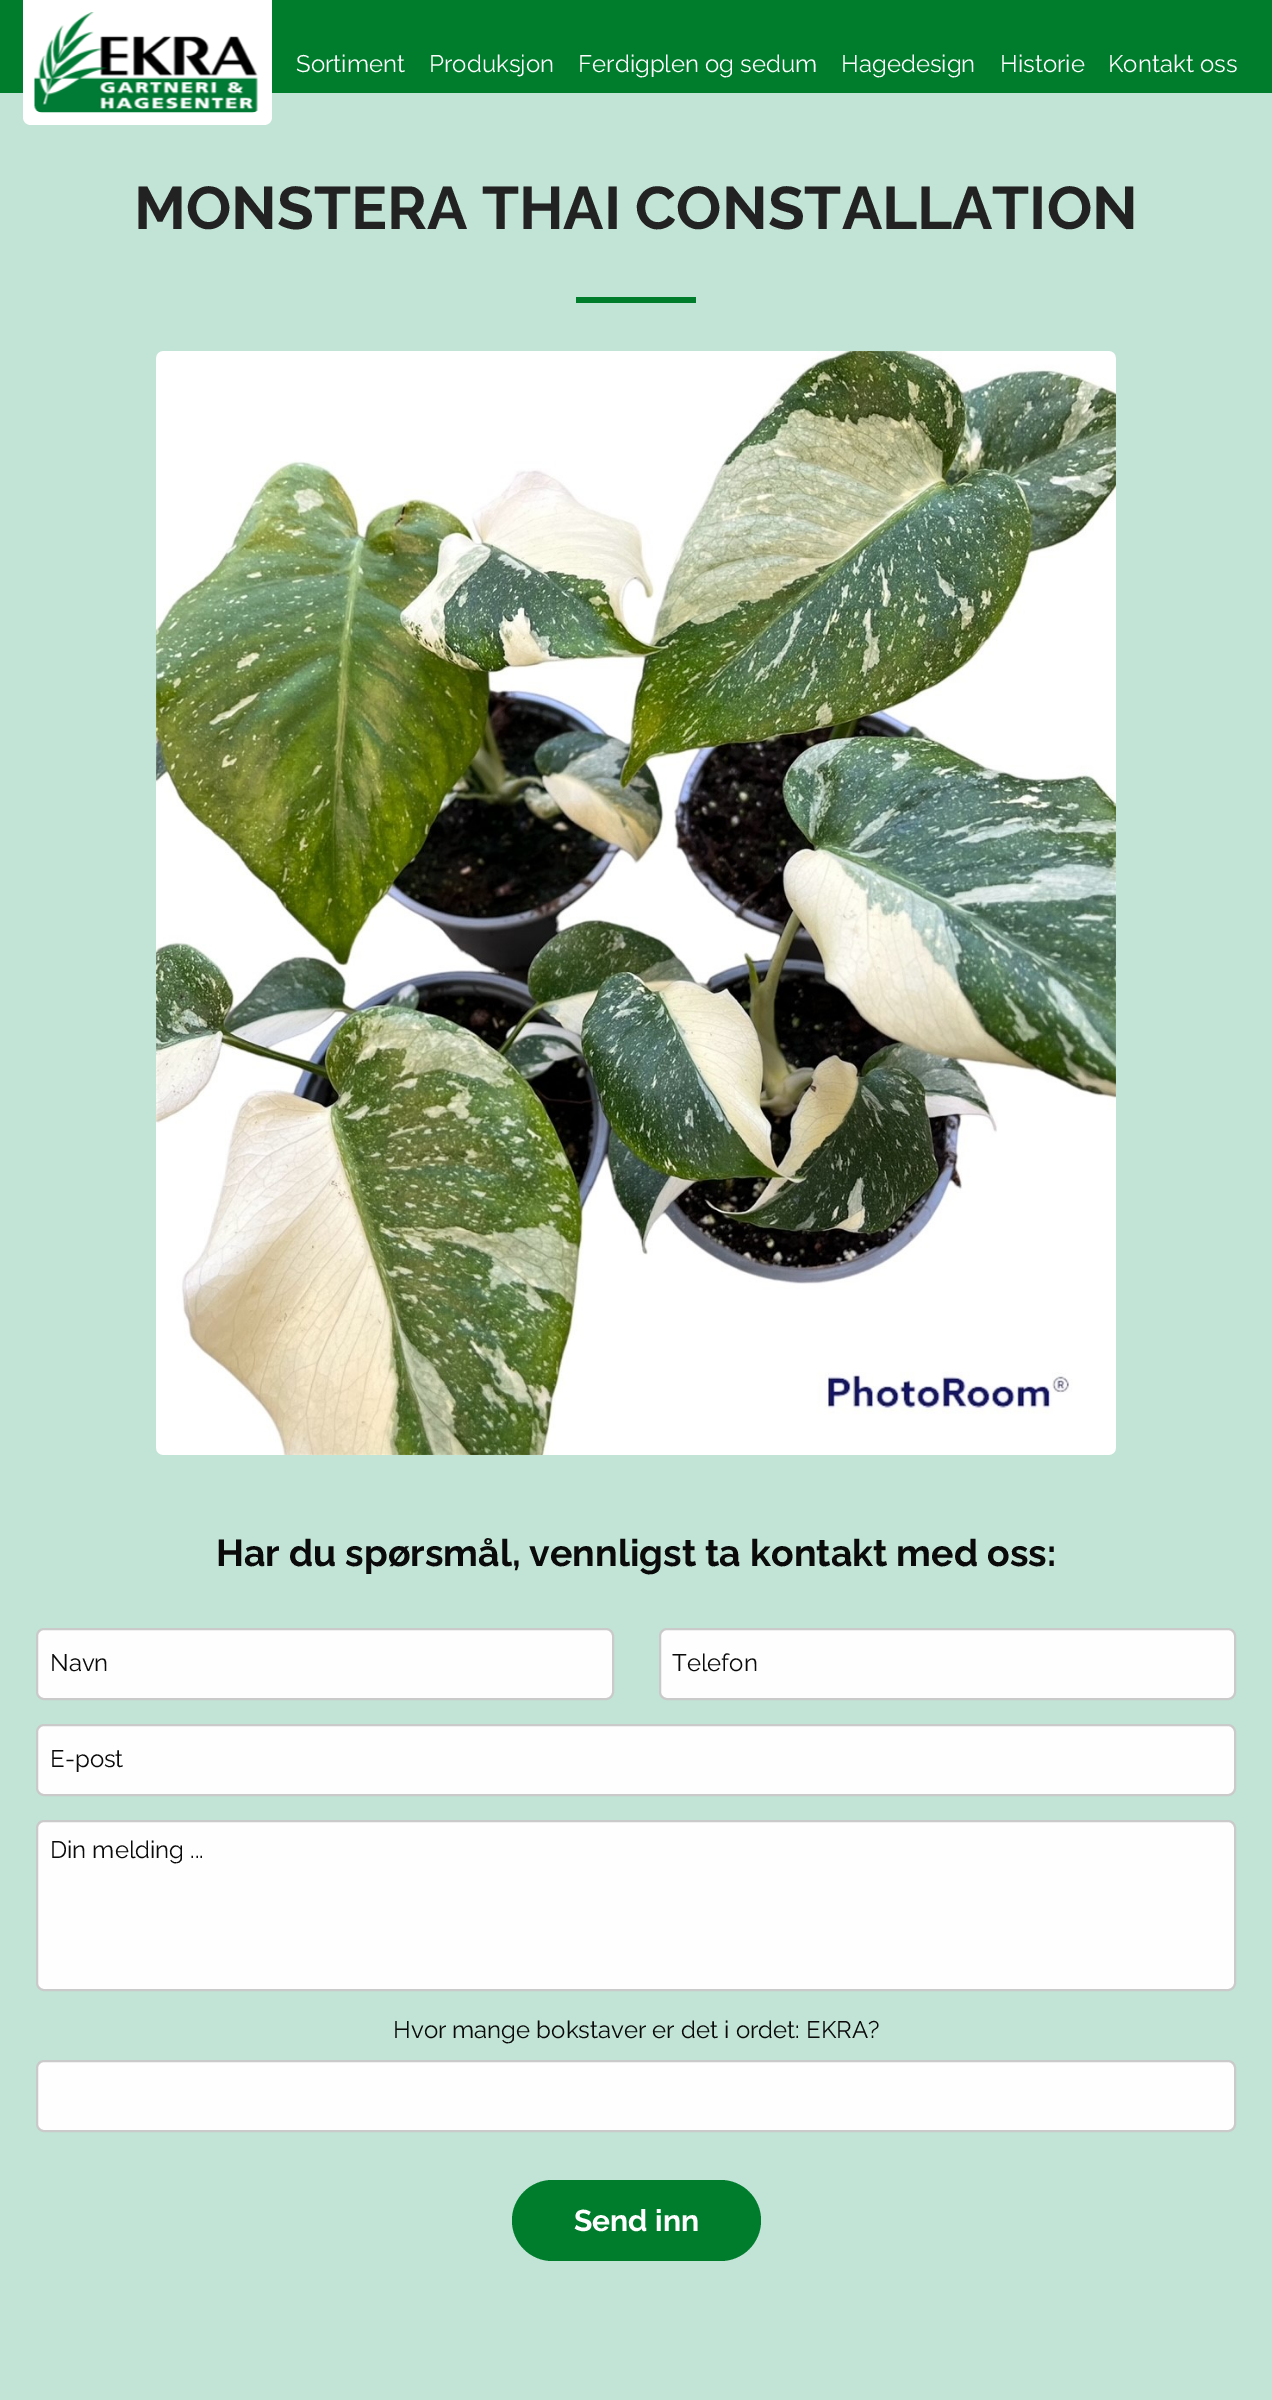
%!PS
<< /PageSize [1272 2400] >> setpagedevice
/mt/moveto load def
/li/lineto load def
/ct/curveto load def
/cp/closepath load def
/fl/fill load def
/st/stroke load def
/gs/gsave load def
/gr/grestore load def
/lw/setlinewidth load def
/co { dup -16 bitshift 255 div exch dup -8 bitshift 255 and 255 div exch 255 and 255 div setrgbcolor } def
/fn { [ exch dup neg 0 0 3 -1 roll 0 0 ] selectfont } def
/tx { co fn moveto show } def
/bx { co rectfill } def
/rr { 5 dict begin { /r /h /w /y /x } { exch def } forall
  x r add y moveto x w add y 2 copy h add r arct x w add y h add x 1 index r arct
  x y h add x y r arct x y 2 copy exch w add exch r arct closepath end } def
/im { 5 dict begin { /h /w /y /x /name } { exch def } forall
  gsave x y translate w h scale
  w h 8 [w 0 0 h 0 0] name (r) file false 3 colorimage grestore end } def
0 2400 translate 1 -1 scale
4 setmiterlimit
0 0 1272 2400 16#007C2D bx
0 93 1272 2307 16#C2E4D6 bx
16#FFFFFF co
23 0 mt 272 0 li 272 117 li 272 121.5 268.5 125 264 125 ct 31 125 li 26.5 125 23 121.5 23 117 ct cp fl
(media/1.raw) 34 12 224 101 im
576 297 120 6 16#007C2D bx
(media/2.raw) 156 351 960 1104 im
16#FEFEFE co
37 1629 576 70 7 rr gs fl gr
16#CACACA co
2 lw
st
16#FEFEFE co
660 1629 575 70 7 rr gs fl gr
16#CACACA co
st
16#FEFEFE co
37 1725 1198 70 7 rr gs fl gr
16#CACACA co
st
16#FEFEFE co
37 1821 1198 169 7 rr gs fl gr
16#CACACA co
st
16#FEFEFE co
37 2061 1198 70 7 rr gs fl gr
16#CACACA co
st
16#007C2D co
512 2180 249 81 40.5 rr fl
(Sortiment) 296 72 /Raleway-Regular 24 16#FEFEFE tx
(Produksjon) 429 72 /Raleway-Regular 24 16#FEFEFE tx
(Ferdigplen og sedum) 578 72 /Raleway-Regular 24 16#FEFEFE tx
(Hagedesign) 841 72 /Raleway-Regular 24 16#FEFEFE tx
(Historie) 1000 72 /Raleway-Regular 24 16#FEFEFE tx
(Kontakt oss) 1108 72 /Raleway-Regular 24 16#FEFEFE tx
(MONSTERA THAI CONSTALLATION) 134 229 /Raleway-Bold 60 16#222222 tx
(Har du spørsmål, vennligst ta kontakt med oss:) 216 1566 /Raleway-Bold 37.5 16#0A0A0A tx
(Navn) 50 1671 /Raleway-Regular 24 16#0A0A0A tx
(Telefon) 672 1671 /Raleway-Regular 24 16#0A0A0A tx
(E-post) 50 1767 /Raleway-Regular 24 16#0A0A0A tx
(Din melding ...) 50 1858 /Raleway-Regular 24 16#0A0A0A tx
(Hvor mange bokstaver er det i ordet: EKRA?) 393 2038 /Raleway-Regular 24 16#0A0A0A tx
(Send inn) 574 2231 /Raleway-Bold 30 16#FEFEFE tx
showpage
